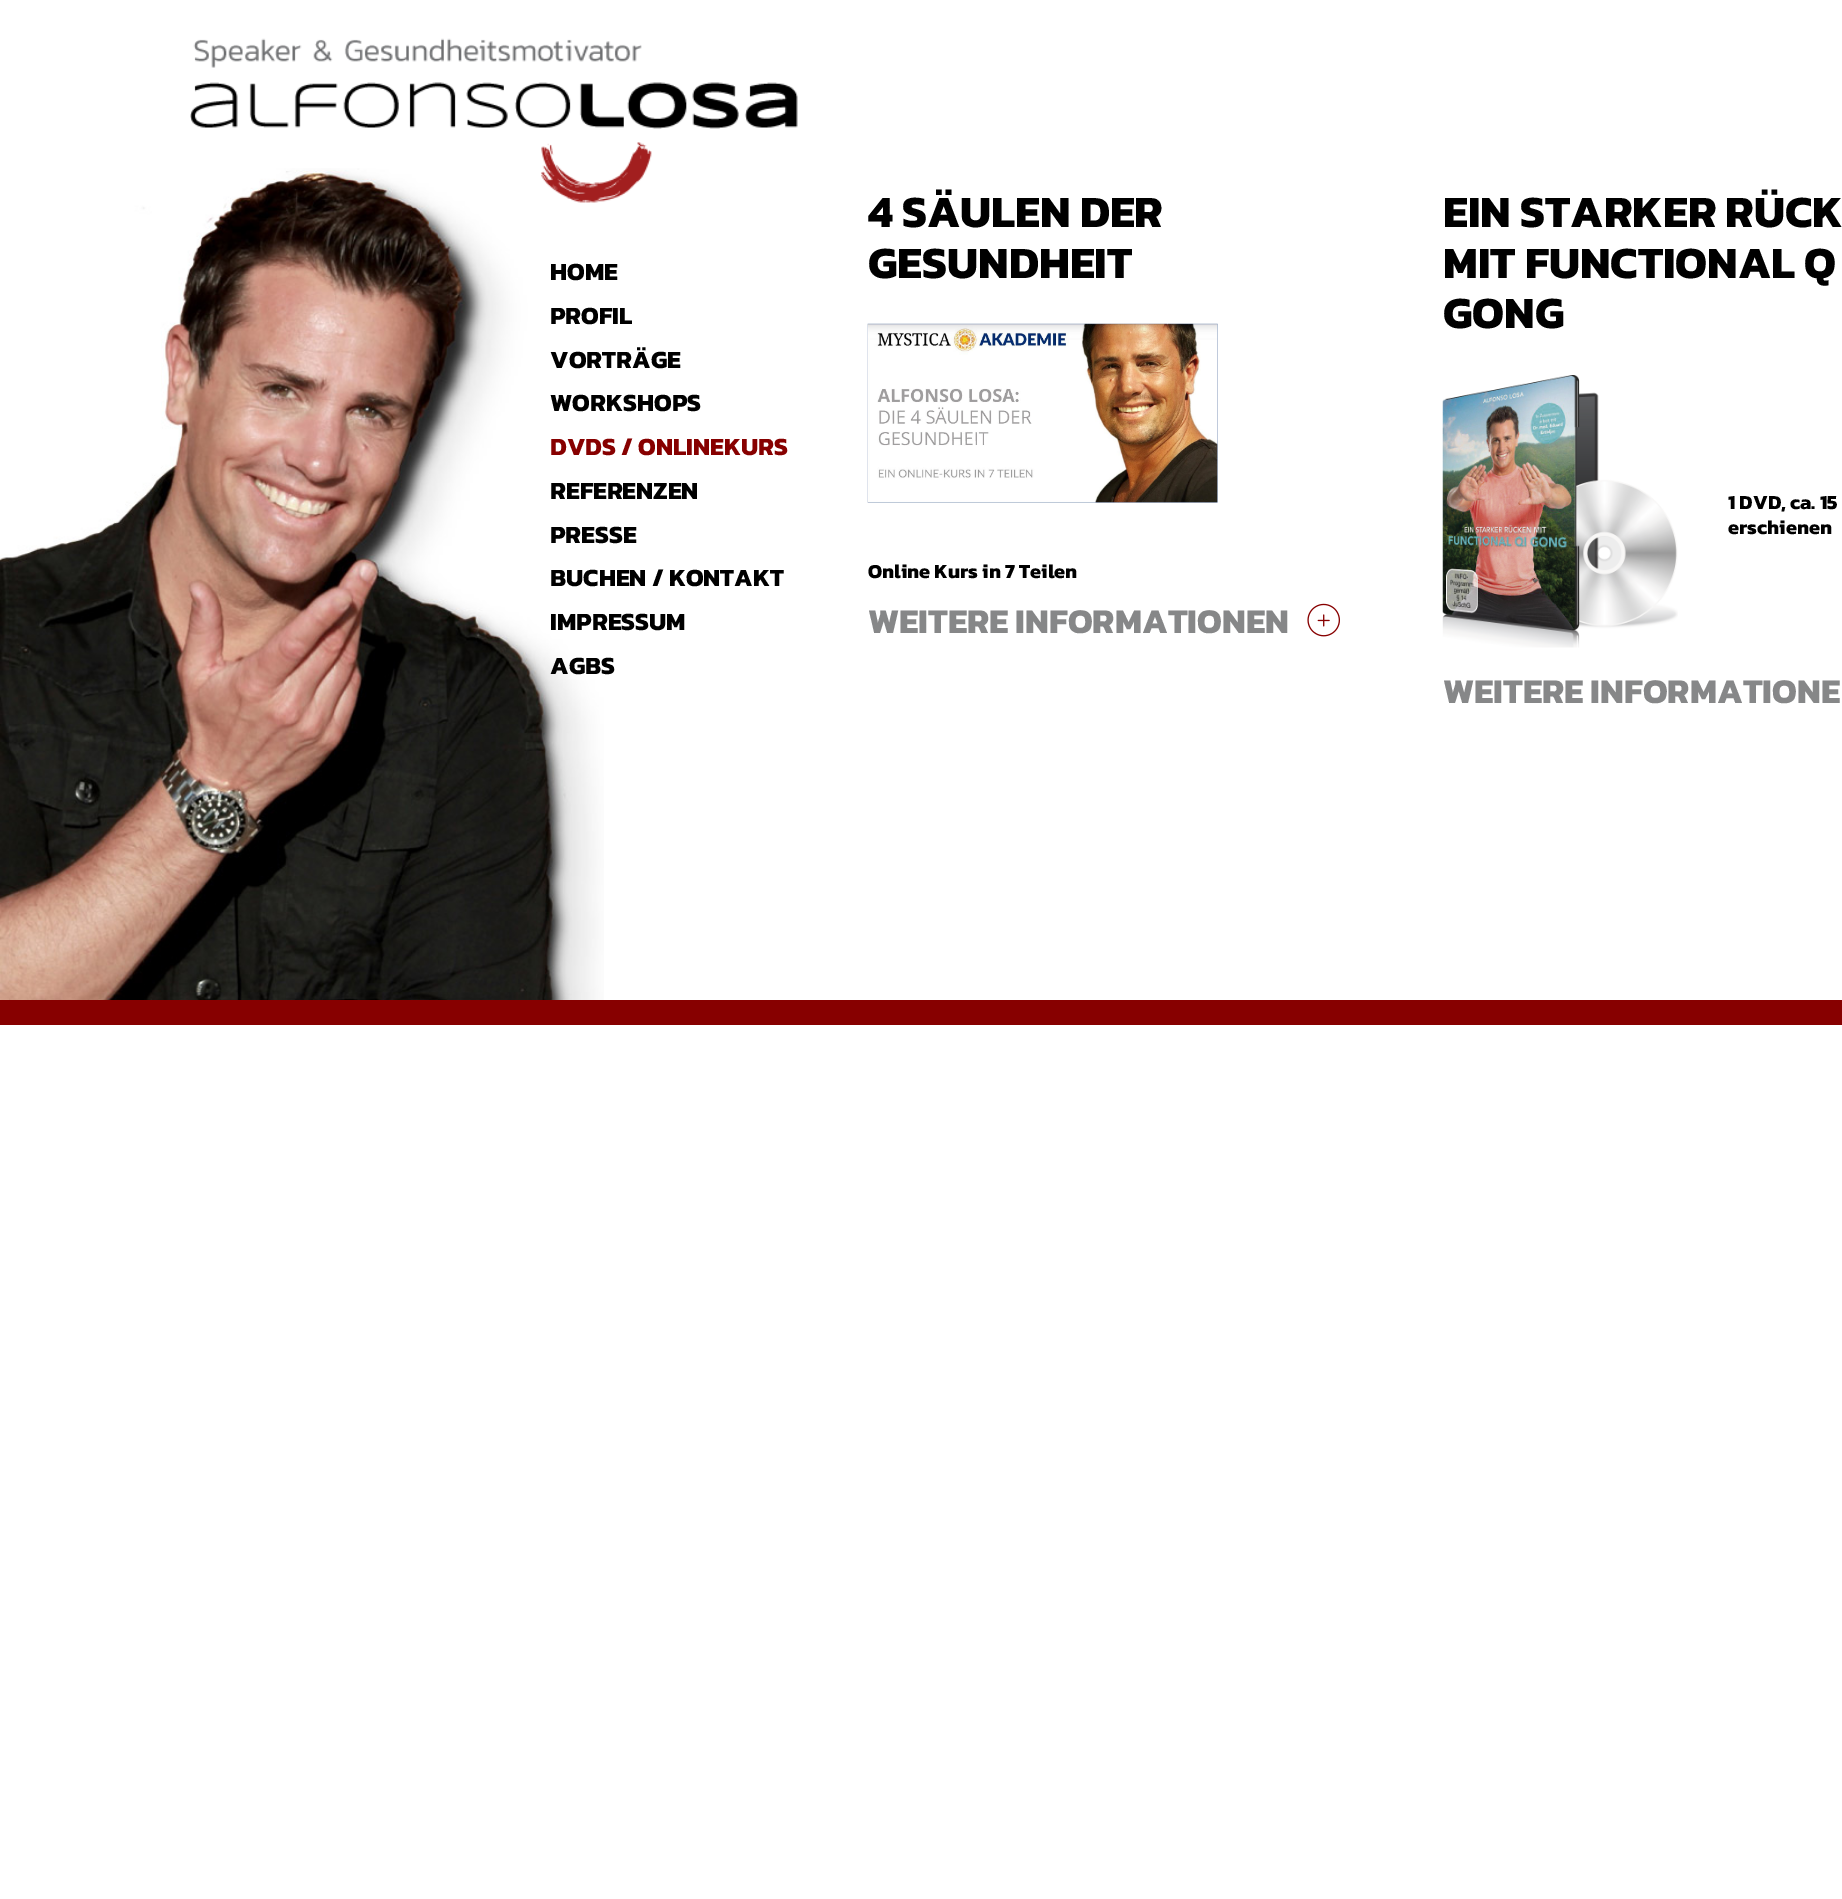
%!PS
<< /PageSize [1842 1899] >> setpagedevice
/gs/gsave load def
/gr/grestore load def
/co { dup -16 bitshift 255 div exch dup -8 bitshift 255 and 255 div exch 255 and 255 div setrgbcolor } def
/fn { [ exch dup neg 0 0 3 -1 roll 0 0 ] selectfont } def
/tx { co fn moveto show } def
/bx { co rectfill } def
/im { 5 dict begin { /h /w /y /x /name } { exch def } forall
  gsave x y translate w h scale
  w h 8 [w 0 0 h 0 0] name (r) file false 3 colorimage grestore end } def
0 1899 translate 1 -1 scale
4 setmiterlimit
0 0 1842 1899 16#FFFFFF bx
0 1000 1842 25 16#870000 bx
(media/2.raw) 0 168 604 832 im
(media/1.raw) 190 38 608 165 im
(media/3.raw) 867 323 351 180 im
(media/4.raw) 1307 603 33 34 im
(media/5.raw) 1442 375 236 273 im
(HOME) 550 280 /Kanit-Bold 25 16#000000 tx
(PROFIL) 550 324 /Kanit-Bold 25 16#000000 tx
(VORTRÄGE) 550 368 /Kanit-Bold 25 16#000000 tx
(WORKSHOPS) 550 411 /Kanit-Bold 25 16#000000 tx
(DVDS / ONLINEKURS) 550 455 /Kanit-Bold 25 16#870000 tx
(REFERENZEN) 550 499 /Kanit-Bold 25 16#000000 tx
(PRESSE) 550 543 /Kanit-Bold 25 16#000000 tx
(BUCHEN / KONTAKT) 550 586 /Kanit-Bold 25 16#000000 tx
(IMPRESSUM) 550 630 /Kanit-Bold 25 16#000000 tx
(AGBS) 550 674 /Kanit-Bold 25 16#000000 tx
gs
868 180 520 478 rectclip
(4 SÄULEN DER) 868 227 /Kanit-Bold 45 16#000000 tx
gr
(GESUNDHEIT) 868 278 /Kanit-Bold 45 16#000000 tx
(Online Kurs in 7 Teilen) 868 578 /Kanit-Bold 20 16#000000 tx
(WEITERE INFORMATIONEN) 868 633 /Kanit-Bold 35 16#868788 tx
(EIN STARKER RÜCK) 1443 227 /Kanit-Bold 45 16#000000 tx
(MIT FUNCTIONAL Q) 1443 278 /Kanit-Bold 45 16#000000 tx
(GONG) 1443 328 /Kanit-Bold 45 16#000000 tx
(1 DVD, ca. 15) 1728 509 /Kanit-Bold 20 16#000000 tx
(erschienen) 1728 534 /Kanit-Bold 20 16#000000 tx
(WEITERE INFORMATIONE) 1443 703 /Kanit-Bold 35 16#868788 tx
showpage
